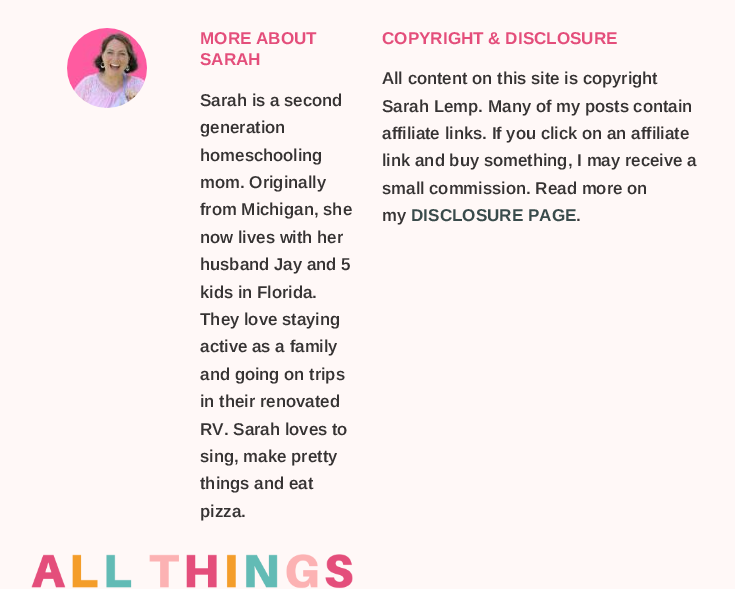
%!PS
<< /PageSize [735 589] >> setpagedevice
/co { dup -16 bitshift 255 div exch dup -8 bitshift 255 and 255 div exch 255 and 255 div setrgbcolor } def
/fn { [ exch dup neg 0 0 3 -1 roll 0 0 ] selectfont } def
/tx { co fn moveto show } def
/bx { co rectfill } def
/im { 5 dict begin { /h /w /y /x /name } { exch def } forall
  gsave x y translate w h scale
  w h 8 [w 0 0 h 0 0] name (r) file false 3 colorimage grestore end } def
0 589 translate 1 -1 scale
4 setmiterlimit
0 0 735 589 16#FFF8F7 bx
(media/1.raw) 67 28 80 80 im
(media/2.raw) 31 554 322 35 im
(MORE ABOUT) 200 44 /Arimo-Bold 17.1 16#E44E7B tx
(SARAH) 200 65 /Arimo-Bold 17.1 16#E44E7B tx
(Sarah is a second) 200 106 /Arimo-SemiBold 17.1 16#363333 tx
(generation) 200 133 /Arimo-SemiBold 17.1 16#363333 tx
(homeschooling) 200 161 /Arimo-SemiBold 17.1 16#363333 tx
(mom. Originally) 200 188 /Arimo-SemiBold 17.1 16#363333 tx
(from Michigan, she) 200 215 /Arimo-SemiBold 17.1 16#363333 tx
(now lives with her) 200 243 /Arimo-SemiBold 17.1 16#363333 tx
(husband Jay and 5) 200 270 /Arimo-SemiBold 17.1 16#363333 tx
(kids in Florida.) 200 298 /Arimo-SemiBold 17.1 16#363333 tx
(They love staying) 200 325 /Arimo-SemiBold 17.1 16#363333 tx
(active as a family) 200 352 /Arimo-SemiBold 17.1 16#363333 tx
(and going on trips) 200 380 /Arimo-SemiBold 17.1 16#363333 tx
(in their renovated) 200 407 /Arimo-SemiBold 17.1 16#363333 tx
(RV. Sarah loves to) 200 435 /Arimo-SemiBold 17.1 16#363333 tx
(sing, make pretty) 200 462 /Arimo-SemiBold 17.1 16#363333 tx
(things and eat) 200 489 /Arimo-SemiBold 17.1 16#363333 tx
(pizza.) 200 517 /Arimo-SemiBold 17.1 16#363333 tx
(COPYRIGHT & DISCLOSURE) 382 44 /Arimo-Bold 17.1 16#E44E7B tx
(All content on this site is copyright) 382 84 /Arimo-SemiBold 17.1 16#363333 tx
(Sarah Lemp. Many of my posts contain) 382 112 /Arimo-SemiBold 17.1 16#363333 tx
(affiliate links. If you click on an affiliate) 382 139 /Arimo-SemiBold 17.1 16#363333 tx
(link and buy something, I may receive a) 382 166 /Arimo-SemiBold 17.1 16#363333 tx
(small commission. Read more on) 382 194 /Arimo-SemiBold 17.1 16#363333 tx
(my) 382 221 /Arimo-SemiBold 17.1 16#363333 tx
(DISCLOSURE PAGE) 411 221 /Arimo-Bold 17.1 16#394B4B tx
(.) 576 221 /Arimo-SemiBold 17.1 16#363333 tx
showpage
